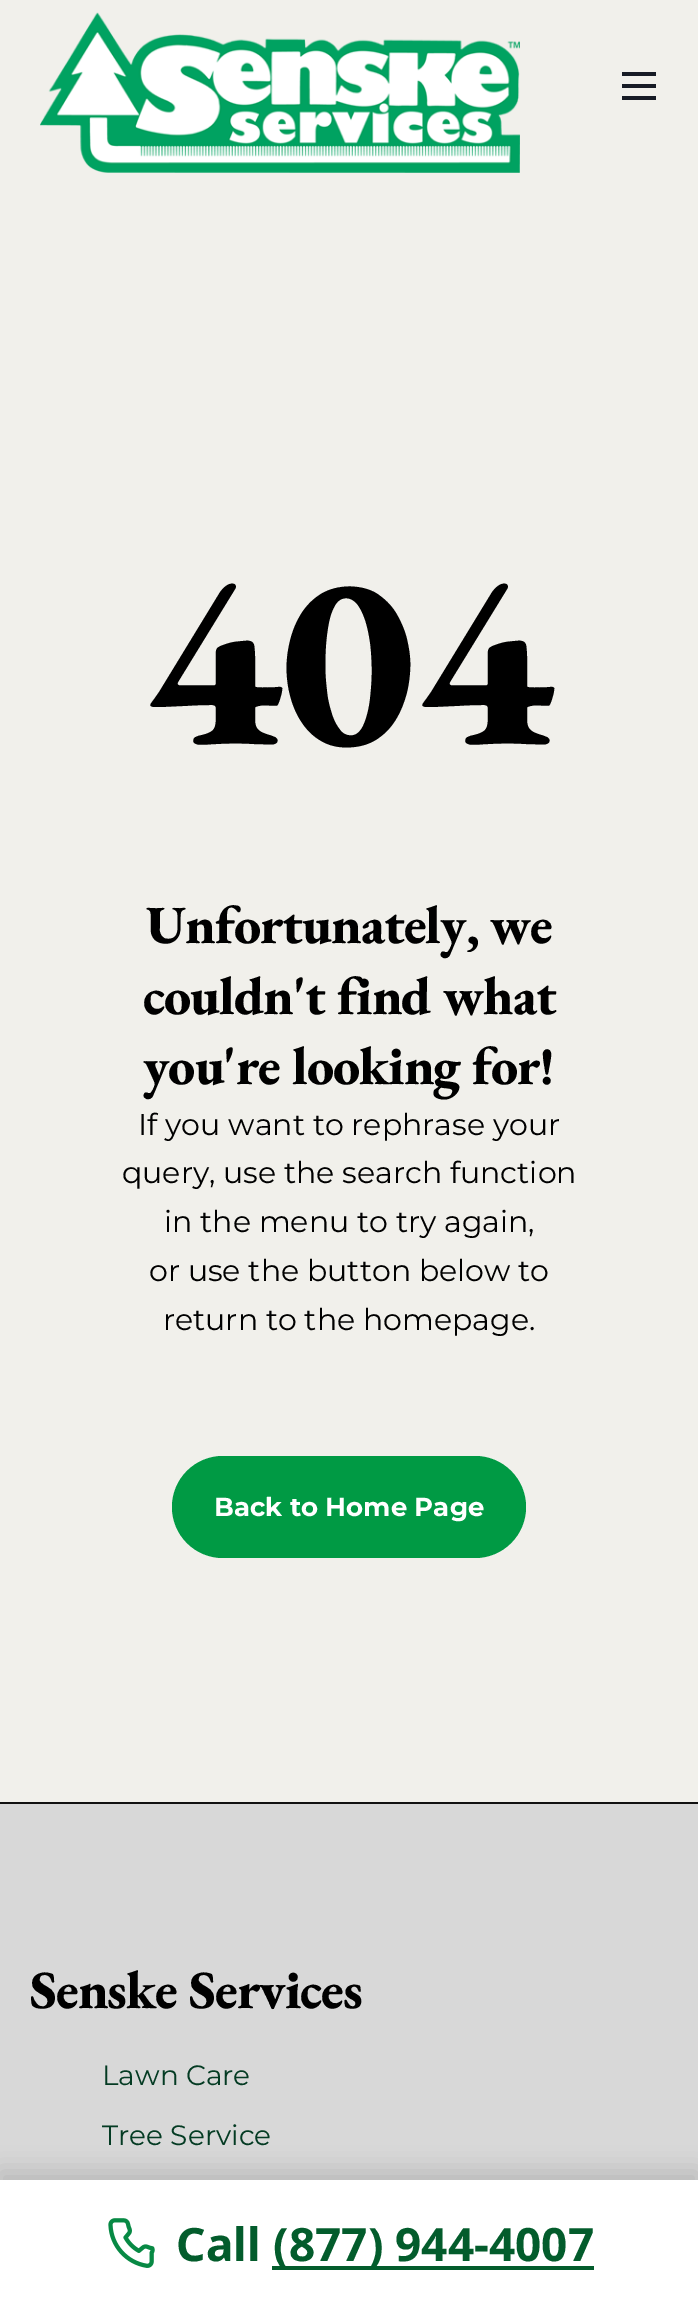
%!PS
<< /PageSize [698 2312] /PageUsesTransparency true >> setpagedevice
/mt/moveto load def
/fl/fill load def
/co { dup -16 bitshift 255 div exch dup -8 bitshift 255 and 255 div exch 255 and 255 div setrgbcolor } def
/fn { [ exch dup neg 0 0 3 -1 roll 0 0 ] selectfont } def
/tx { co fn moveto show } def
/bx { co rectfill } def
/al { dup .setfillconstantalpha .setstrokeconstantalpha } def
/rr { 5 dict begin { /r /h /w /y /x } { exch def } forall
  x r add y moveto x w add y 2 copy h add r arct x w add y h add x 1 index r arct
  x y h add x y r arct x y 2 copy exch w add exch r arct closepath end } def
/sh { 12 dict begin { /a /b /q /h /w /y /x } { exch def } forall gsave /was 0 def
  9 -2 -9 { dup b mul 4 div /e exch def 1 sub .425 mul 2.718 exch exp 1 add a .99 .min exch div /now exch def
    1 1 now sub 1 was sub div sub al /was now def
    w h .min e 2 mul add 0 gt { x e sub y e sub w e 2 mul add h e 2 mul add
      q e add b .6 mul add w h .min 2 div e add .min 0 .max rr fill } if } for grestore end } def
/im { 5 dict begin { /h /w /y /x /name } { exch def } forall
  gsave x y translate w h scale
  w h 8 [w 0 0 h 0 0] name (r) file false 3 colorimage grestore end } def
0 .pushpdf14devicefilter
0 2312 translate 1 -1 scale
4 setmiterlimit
0 0 698 2312 16#F1F0EB bx
(media/1.raw) 40 12 480 161 im
622 72 34 4 16#171B25 bx
622 84 34 4 16#171B25 bx
622 96 34 4 16#171B25 bx
16#009A44 co
172 1456 354 102 51 rr fl
0 1804 698 376 16#D8D8D8 bx
0 1802 698 2 16#111111 bx
16#000000 co
0 2172 698 132 0 12 .15 sh
0 2180 698 132 16#FFFFFF bx
(media/2.raw) 108 2218 47 50 im
272 2266 322 4 16#035C2C bx
/EBGaramond-ExtraBold 250 fn
16#000000 co
145 744 mt 1 0 (404) ashow
/EBGaramond-ExtraBold 53.75 fn
146 943 mt -1 0 (Unfortunately, we) ashow
143 1014 mt -1 0 (couldn't find what) ashow
143 1084 mt -1 0 (you're looking for!) ashow
(If you want to rephrase your) 138 1135 /Montserrat-Regular 30 16#000000 tx
(query, use the search function) 122 1183 /Montserrat-Regular 30 16#000000 tx
(in the menu to try again,) 164 1232 /Montserrat-Regular 30 16#000000 tx
(or use the button below to) 149 1281 /Montserrat-Regular 30 16#000000 tx
(return to the homepage.) 163 1330 /Montserrat-Regular 30 16#000000 tx
(Back to Home Page) 214 1516 /Montserrat-Bold 26 16#FFFFFF tx
/EBGaramond-ExtraBold 53.75 fn
16#000000 co
30 2008 mt -1 0 (Senske Services) ashow
(Lawn Care) 102 2085 /Montserrat-Regular 28 16#043B23 tx
(Tree Service) 102 2145 /Montserrat-Regular 28 16#043B23 tx
(Call) 176 2261 /NotoSans-Bold 46 16#035C2C tx
(\(877\) 944-4007) 273 2261 /NotoSans-Bold 46 16#035C2C tx
.poppdf14devicefilter showpage
